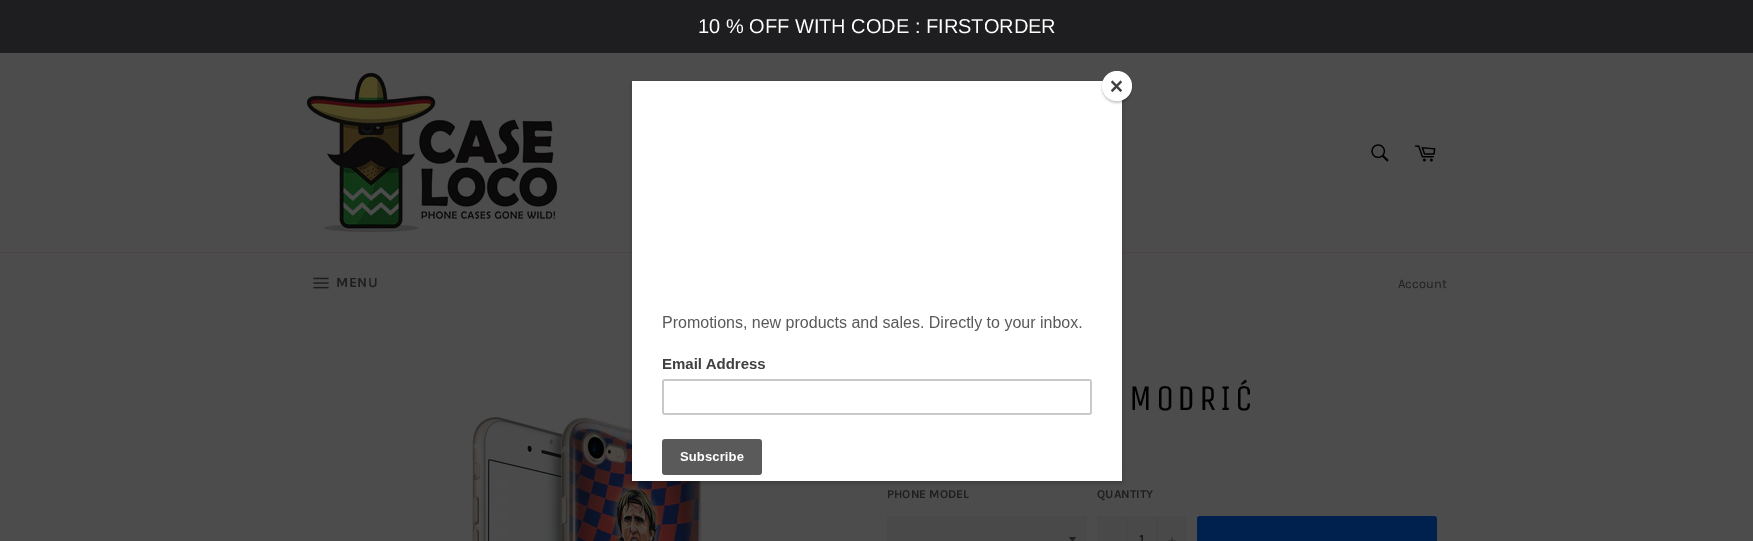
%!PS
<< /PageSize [1753 541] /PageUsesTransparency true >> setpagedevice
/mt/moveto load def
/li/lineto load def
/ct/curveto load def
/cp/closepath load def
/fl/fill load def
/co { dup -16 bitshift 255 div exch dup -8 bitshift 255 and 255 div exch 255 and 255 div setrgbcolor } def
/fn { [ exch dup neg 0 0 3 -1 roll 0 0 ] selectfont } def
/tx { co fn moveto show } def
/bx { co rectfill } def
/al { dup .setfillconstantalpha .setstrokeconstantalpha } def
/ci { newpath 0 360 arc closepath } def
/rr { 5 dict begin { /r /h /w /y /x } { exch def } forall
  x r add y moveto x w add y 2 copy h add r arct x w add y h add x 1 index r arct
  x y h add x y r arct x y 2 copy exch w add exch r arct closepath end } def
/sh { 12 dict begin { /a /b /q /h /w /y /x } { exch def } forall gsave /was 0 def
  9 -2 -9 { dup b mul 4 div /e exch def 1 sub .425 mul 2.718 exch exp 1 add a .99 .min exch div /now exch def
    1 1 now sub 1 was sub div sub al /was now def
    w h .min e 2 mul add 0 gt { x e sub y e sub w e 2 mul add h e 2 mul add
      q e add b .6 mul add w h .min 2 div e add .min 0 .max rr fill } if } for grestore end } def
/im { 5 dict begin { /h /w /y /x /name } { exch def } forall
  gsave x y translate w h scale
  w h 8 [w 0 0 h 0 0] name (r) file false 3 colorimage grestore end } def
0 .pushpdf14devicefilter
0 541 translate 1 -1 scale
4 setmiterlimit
0 0 1753 541 16#4D4C4C bx
0 0 1753 53 16#1E1E20 bx
(media/1.raw) 307 73 250 159 im
(media/2.raw) 1371 144 18 18 im
(media/3.raw) 1414 145 22 17 im
0 252 1753 1 16#4D4444 bx
(media/4.raw) 313 277 16 12 im
(media/6.raw) 471 414 231 127 im
1122 470 325 1 16#4A4A4A bx
16#000000 co
632 83 490 400 0 2 .2 sh
(media/5.raw) 632 81 490 400 im
1102 73 30 30 15 1 .2 sh
16#FFFFFF co
1117 86 15 ci fl
16#414141 co
1120.5 80.5 mt 1122 82 li 1112.5 92 li 1111 90.5 li cp fl
1111 82 mt 1112.5 80.5 li 1122 90.5 li 1120.5 92 li cp fl
887 516 200 25 16#494949 bx
16#1F1F1F co
1069 537 mt 1073.5 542.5 1071.5 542.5 1076 537 ct cp fl
1097 516 90 25 16#494949 bx
1126 516 1 25 16#454545 bx
1157 516 1 25 16#454545 bx
(media/7.raw) 1168 537 8 4 im
16#00214D co
1197 516 240 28 3 rr fl
(10 % OFF WITH CODE : FIRSTORDER) 698 33 /LiberationSans-Regular 20 16#FFFFFF tx
/Karla-Bold 14 fn
16#1F1F1F co
336 287 mt .5 0 (MENU) ashow
(Account) 1398 288 /Karla-Regular 13 16#1F1F1F tx
/UnicaOne-Regular 36 fn
16#010101 co
1129 410 mt 3.5 0 (MODRIĆ) ashow
(PHONE MODEL) 887 498 /Karla-Bold 12 16#1F1F1F tx
(QUANTITY) 1097 498 /Karla-Bold 12 16#1F1F1F tx
(1) 1139 545 /Karla-Regular 16 16#0F0F0F tx
.poppdf14devicefilter showpage
